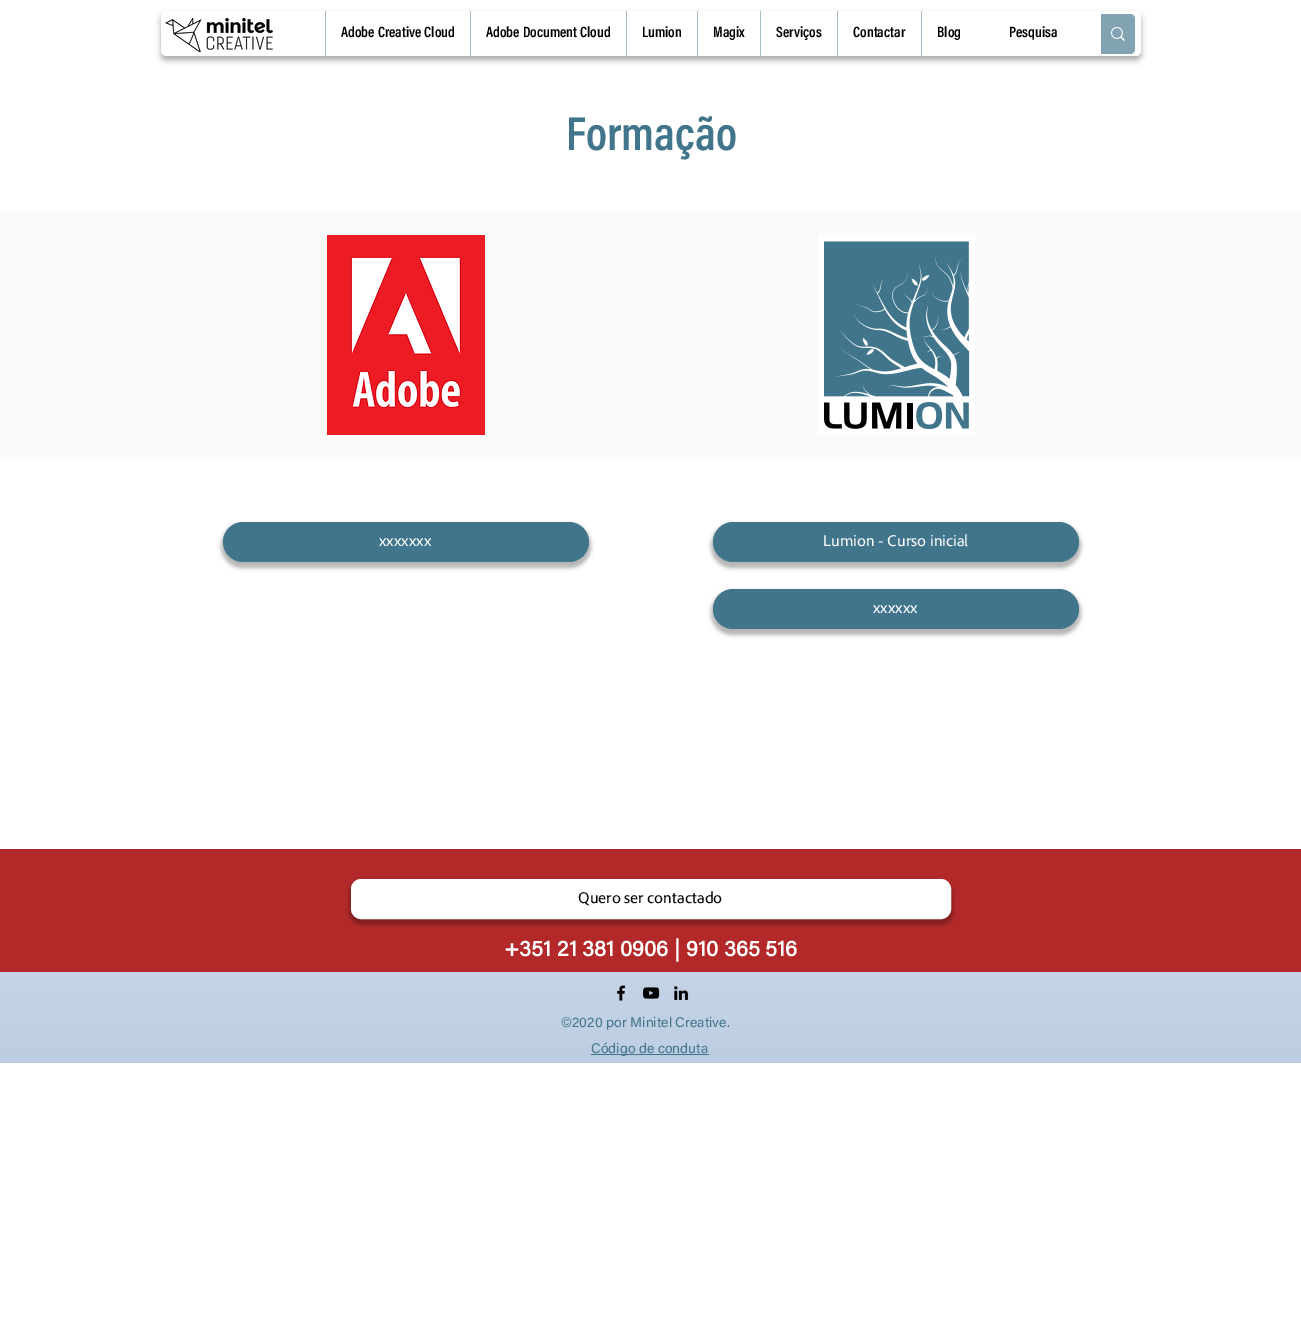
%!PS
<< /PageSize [1301 1320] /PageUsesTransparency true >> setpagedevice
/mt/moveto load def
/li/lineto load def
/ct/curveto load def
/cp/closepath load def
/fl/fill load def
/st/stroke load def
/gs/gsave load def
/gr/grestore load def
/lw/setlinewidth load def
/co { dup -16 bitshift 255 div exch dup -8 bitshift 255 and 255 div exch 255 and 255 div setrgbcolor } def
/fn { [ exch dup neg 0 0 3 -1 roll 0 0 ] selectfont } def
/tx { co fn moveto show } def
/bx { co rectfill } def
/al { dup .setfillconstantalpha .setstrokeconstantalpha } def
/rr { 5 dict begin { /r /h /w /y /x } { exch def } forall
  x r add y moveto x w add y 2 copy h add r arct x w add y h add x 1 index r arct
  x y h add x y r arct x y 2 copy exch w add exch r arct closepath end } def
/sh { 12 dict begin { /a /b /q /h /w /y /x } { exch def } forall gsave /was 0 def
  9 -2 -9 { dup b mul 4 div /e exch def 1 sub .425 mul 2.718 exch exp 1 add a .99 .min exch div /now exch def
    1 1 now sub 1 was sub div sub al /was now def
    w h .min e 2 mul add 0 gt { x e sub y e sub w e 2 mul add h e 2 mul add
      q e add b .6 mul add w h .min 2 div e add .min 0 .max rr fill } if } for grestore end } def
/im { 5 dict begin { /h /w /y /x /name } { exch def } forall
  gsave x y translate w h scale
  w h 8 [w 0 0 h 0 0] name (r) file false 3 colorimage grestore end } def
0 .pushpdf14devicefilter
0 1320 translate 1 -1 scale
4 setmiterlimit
0 0 1301 1320 16#FFFFFF bx
16#000000 co
161 15 980 45 5 3 .34 sh
16#FFFFFF co
161 11 980 45 5 rr fl
(media/1.raw) 165 18 108 34 im
325 11 1 45 16#A7C0CA bx
470 11 1 45 16#A7C0CA bx
626 11 1 45 16#A7C0CA bx
697 11 1 45 16#A7C0CA bx
760 11 1 45 16#A7C0CA bx
837 11 1 45 16#A7C0CA bx
921 11 1 45 16#A7C0CA bx
16#82A4B2 co
1101 14 mt 1130 14 li 1133 14 1135 16 1135 19 ct 1135 49 li 1135 52 1133 54 1130 54 ct 1101 54 li cp fl
(media/2.raw) 1111 27 14 14 im
16#000000 co
221 524 370 44 22 2 .29 sh
16#40758B co
223 522 366 40 20 rr fl
16#000000 co
711 524 370 44 22 2 .29 sh
16#40758B co
713 522 366 40 20 rr fl
16#000000 co
711 591 370 44 22 2 .29 sh
16#40758B co
713 589 366 40 20 rr fl
0 211 1301 248 16#FAFAFA bx
(media/3.raw) 327 235 158 200 im
(media/4.raw) 818 235 157 200 im
0 849 1301 123 16#B32929 bx
16#000000 co
349 881 604 44 12 2 .29 sh
16#FFFFFF co
352 880 598 38 9 rr gs fl gr
2 lw
st
0 972 1301 91 16#BBCCE1 bx
(media/8.raw) 0 972 1301 77 im
(media/5.raw) 617 985 9 16 im
(media/6.raw) 642 987 18 12 im
(media/7.raw) 674 986 15 15 im
591 1054 118 1 16#40758B bx
(Adobe Creative Cloud) 341 37 /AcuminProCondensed-SemiBold 15 16#000000 tx
(Adobe Document Cloud) 486 37 /AcuminProCondensed-SemiBold 15 16#000000 tx
(Lumion) 642 37 /AcuminProCondensed-SemiBold 15 16#000000 tx
(Magix) 713 37 /AcuminProCondensed-SemiBold 15 16#000000 tx
(Serviços) 776 37 /AcuminProCondensed-SemiBold 15 16#000000 tx
(Contactar) 853 37 /AcuminProCondensed-SemiBold 15 16#000000 tx
(Blog) 937 37 /AcuminProCondensed-SemiBold 15 16#000000 tx
(Pesquisa) 1009 37 /AcuminProCondensed-SemiBold 15 16#000000 tx
(Formação) 566 150 /AcuminProCondensed-SemiBold 48 16#40758B tx
(xxxxxxx) 379 546 /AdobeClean-Regular 16 16#FFFFFF tx
(Lumion - Curso inicial) 823 546 /AdobeClean-Regular 16 16#FFFFFF tx
(xxxxxx) 873 613 /AdobeClean-Regular 16 16#FFFFFF tx
(Quero ser contactado) 578 903 /AdobeClean-Regular 16 16#000000 tx
(+351 21 381 0906 | 910 365 516) 504 956 /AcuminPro-Bold 22 16#FFFFFF tx
(©2020 por Minitel Creative.) 561 1027 /AcuminPro-Regular 14 16#40758B tx
(Código de conduta) 591 1053 /AcuminPro-Regular 14 16#40758B tx
.poppdf14devicefilter showpage
